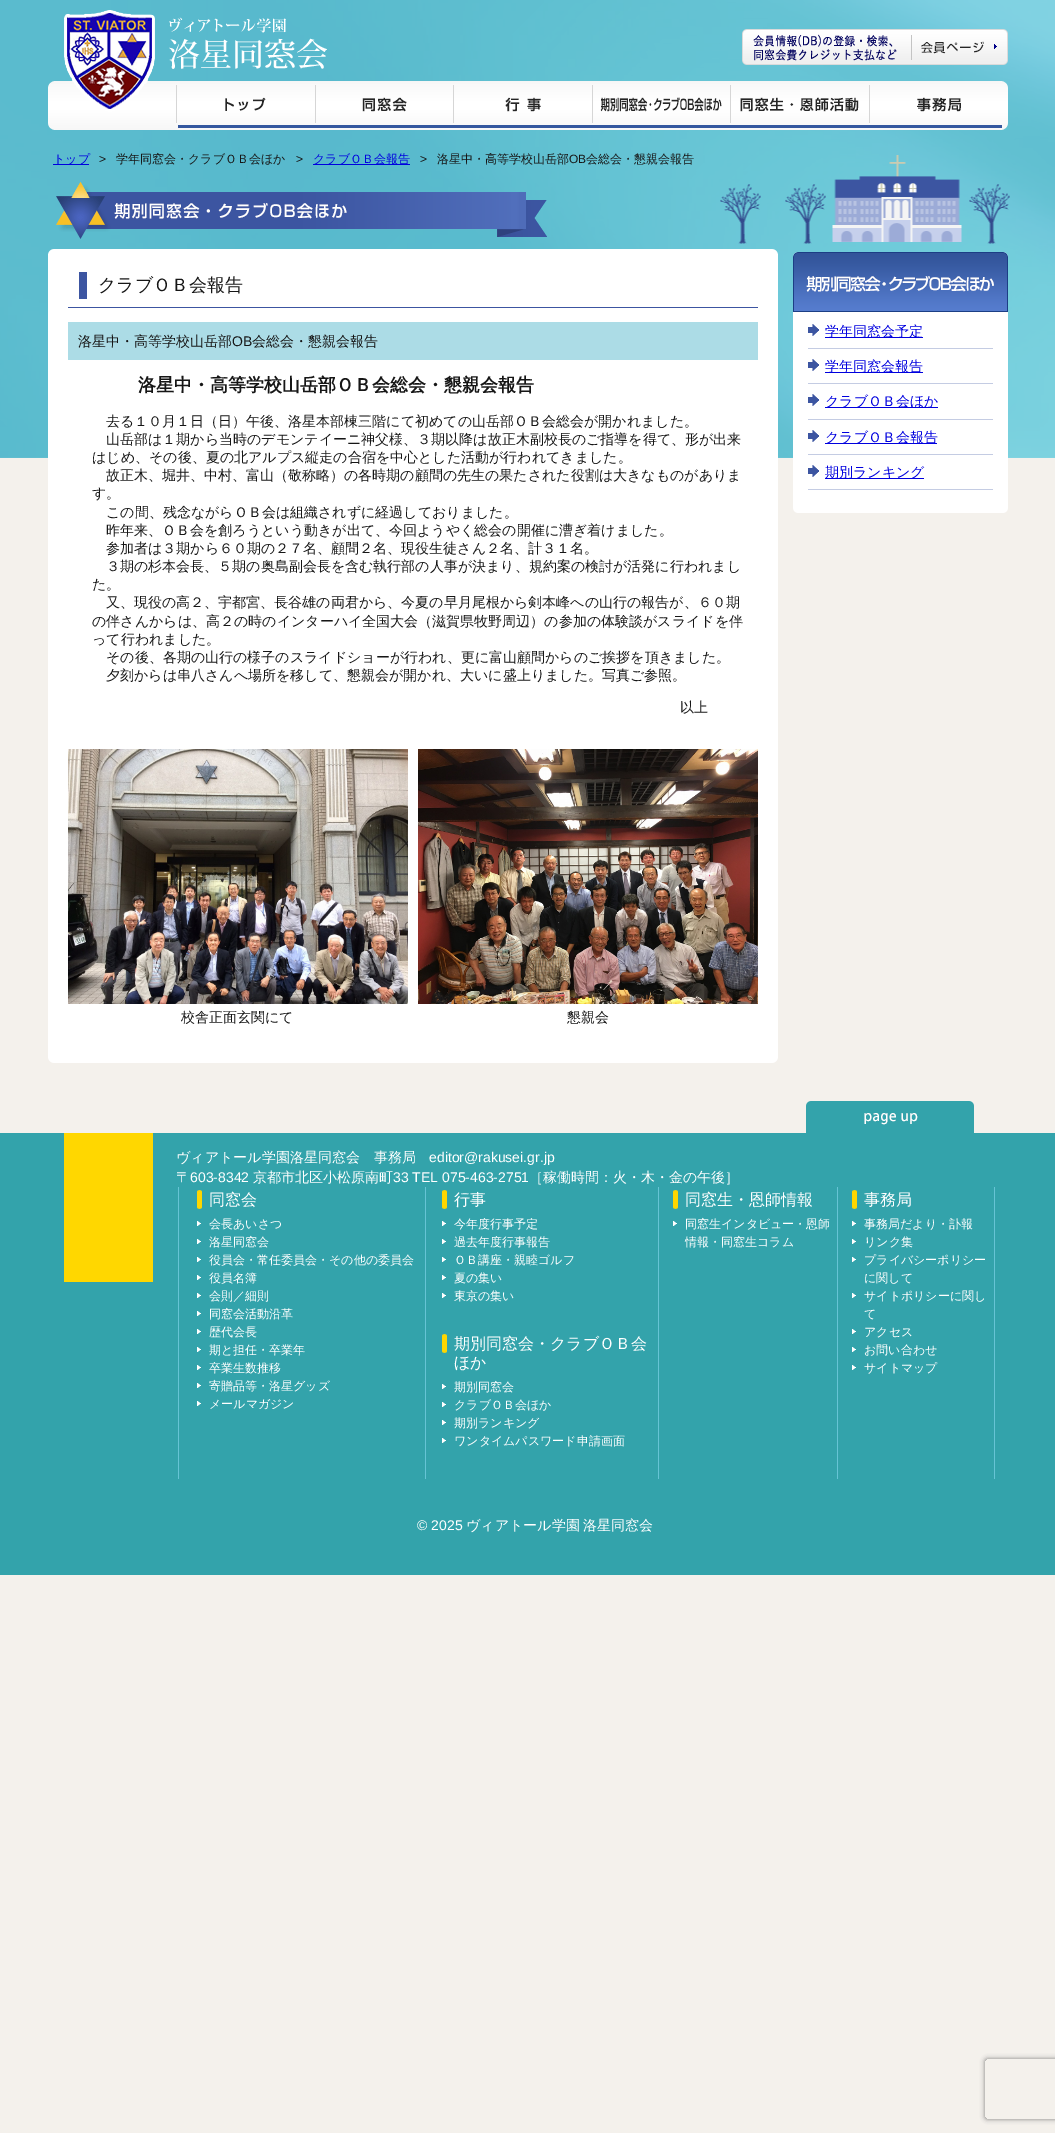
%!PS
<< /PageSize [1055 2133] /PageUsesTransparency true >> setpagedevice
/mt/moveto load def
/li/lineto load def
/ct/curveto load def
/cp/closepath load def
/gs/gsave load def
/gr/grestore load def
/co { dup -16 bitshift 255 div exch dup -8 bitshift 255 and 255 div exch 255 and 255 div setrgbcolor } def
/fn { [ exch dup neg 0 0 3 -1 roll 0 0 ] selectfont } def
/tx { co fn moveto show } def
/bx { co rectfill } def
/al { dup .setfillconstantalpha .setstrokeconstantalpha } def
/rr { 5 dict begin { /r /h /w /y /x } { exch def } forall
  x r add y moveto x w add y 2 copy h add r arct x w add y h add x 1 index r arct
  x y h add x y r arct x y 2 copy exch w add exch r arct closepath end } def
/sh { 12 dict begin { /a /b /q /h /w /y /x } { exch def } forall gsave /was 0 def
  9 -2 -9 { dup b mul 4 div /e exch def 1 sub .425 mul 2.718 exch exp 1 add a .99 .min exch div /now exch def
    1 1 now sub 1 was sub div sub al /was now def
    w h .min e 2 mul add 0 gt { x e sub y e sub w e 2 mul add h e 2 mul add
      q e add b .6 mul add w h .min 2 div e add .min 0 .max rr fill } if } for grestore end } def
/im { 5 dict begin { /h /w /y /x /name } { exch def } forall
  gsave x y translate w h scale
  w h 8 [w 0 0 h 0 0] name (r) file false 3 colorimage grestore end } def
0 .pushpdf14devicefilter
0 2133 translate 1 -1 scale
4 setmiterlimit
0 0 1055 2133 16#F4F1EC bx
(media/1.raw) 0 0 1055 458 im
(media/2.raw) 48 10 960 120 im
(media/3.raw) 742 29 266 36 im
(media/4.raw) 176 85 90 43 im
(media/5.raw) 315 85 92 38 im
(media/6.raw) 453 85 88 38 im
(media/7.raw) 592 85 130 38 im
(media/8.raw) 730 85 129 38 im
(media/9.raw) 869 85 92 38 im
53 164 36 1 16#0000DE bx
313 164 97 1 16#0000DE bx
(media/10.raw) 56 182 491 57 im
48 254 730 804 16#FFFFFF bx
(media/11.raw) 48 249 730 814 im
79 272 8 27 16#3C55A1 bx
68 307 690 1 16#3C55A1 bx
68 322 690 38 16#ACDCE6 bx
(media/12.raw) 68 749 340 255 im
(media/13.raw) 418 749 340 255 im
(media/14.raw) 793 252 215 261 im
793 312 215 196 16#FFFFFF bx
(media/15.raw) 808 324 11 12 im
808 348 185 1 16#C4CCE3 bx
825 337 98 1 16#0000DE bx
(media/15.raw) 808 359 11 12 im
808 383 185 1 16#C4CCE3 bx
825 372 98 1 16#0000DE bx
(media/15.raw) 808 394 11 12 im
808 419 185 1 16#C4CCE3 bx
825 407 113 1 16#0000DE bx
(media/15.raw) 808 430 11 12 im
808 454 185 1 16#C4CCE3 bx
825 443 112 1 16#0000DE bx
(media/15.raw) 808 465 11 12 im
808 489 185 1 16#C4CCE3 bx
825 478 99 1 16#0000DE bx
0 1133 1055 442 16#33A3AB bx
64 1133 89 149 16#FFD700 bx
(media/16.raw) 806 1101 168 32 im
(media/17.raw) 178 1187 817 292 im
(media/18.raw) 197 1190 5 19 im
(media/19.raw) 197 1221 4 5 im
(media/19.raw) 197 1239 4 5 im
(media/19.raw) 197 1257 4 5 im
(media/19.raw) 197 1275 4 5 im
(media/19.raw) 197 1293 4 5 im
(media/19.raw) 197 1311 4 5 im
(media/19.raw) 197 1329 4 5 im
(media/19.raw) 197 1347 4 5 im
(media/19.raw) 197 1365 4 5 im
(media/19.raw) 197 1383 4 5 im
(media/19.raw) 197 1401 4 5 im
(media/18.raw) 442 1190 5 19 im
(media/19.raw) 442 1221 4 5 im
(media/19.raw) 442 1239 4 5 im
(media/19.raw) 442 1257 4 5 im
(media/19.raw) 442 1275 4 5 im
(media/19.raw) 442 1293 4 5 im
(media/18.raw) 442 1334 5 19 im
(media/19.raw) 442 1384 4 5 im
(media/19.raw) 442 1402 4 5 im
(media/19.raw) 442 1420 4 5 im
(media/19.raw) 442 1438 4 5 im
(media/20.raw) 673 1190 5 19 im
(media/19.raw) 673 1221 4 5 im
(media/20.raw) 852 1190 5 19 im
(media/19.raw) 852 1221 4 5 im
(media/19.raw) 852 1239 4 5 im
(media/19.raw) 852 1257 4 5 im
(media/19.raw) 852 1293 4 5 im
(media/19.raw) 852 1329 4 5 im
(media/19.raw) 852 1347 4 5 im
(media/19.raw) 852 1365 4 5 im
gs
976 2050 mt 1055 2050 li 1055 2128 li 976 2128 li cp 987 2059 mt 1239 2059 li 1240 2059 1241 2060 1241 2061 ct 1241 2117 li 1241 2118 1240 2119 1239 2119 ct 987 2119 li 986 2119 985 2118 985 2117 ct 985 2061 li 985 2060 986 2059 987 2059 ct cp eoclip newpath
16#808080 co
985 2059 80 60 2 2.5 1 sh
gr
(トップ) 53 163 /WenQuanYiZenHei-Medium 12 16#0000DE tx
/LiberationSans-Regular 12 fn
16#161616 co
99 163 mt 10 0 (>) ashow
(学年同窓会・クラブＯＢ会ほか) 116 163 /WenQuanYiZenHei-Medium 12 16#161616 tx
/LiberationSans-Regular 12 fn
296 163 mt 10 0 (>) ashow
(クラブＯＢ会報告) 313 163 /WenQuanYiZenHei-Medium 12 16#0000DE tx
/LiberationSans-Regular 12 fn
16#161616 co
420 163 mt 10 0 (>) ashow
(洛星中・高等学校山岳部) 437 163 /WenQuanYiZenHei-Medium 12 16#161616 tx
(OB) 569 163 /LiberationSans-Regular 12 16#161616 tx
(会総会・懇親会報告) 586 163 /WenQuanYiZenHei-Medium 12 16#161616 tx
(クラブＯＢ会報告) 98 291 /WenQuanYiZenHei-Medium 18 16#161616 tx
(洛星中・高等学校山岳部) 78 346 /WenQuanYiZenHei-Medium 14 16#161616 tx
(OB) 232 346 /LiberationSans-Regular 14 16#161616 tx
(会総会・懇親会報告) 252 346 /WenQuanYiZenHei-Medium 14 16#161616 tx
(洛星中・高等学校山岳部ＯＢ会総会・懇親会報告) 138 391 /WenQuanYiZenHei-Bold 18 16#161616 tx
(去る１０月１日（日）午後、洛星本部棟三階にて初めての山岳部ＯＢ会総会が開かれました。) 106 426 /WenQuanYiZenHei-Medium 14 16#161616 tx
(山岳部は１期から当時のデモンテイーニ神父様、３期以降は故正木副校長のご指導を得て、形が出来) 106 444 /WenQuanYiZenHei-Medium 14 16#161616 tx
(はじめ、その後、夏の北アルプス縦走の合宿を中心とした活動が行われてきました。) 92 462 /WenQuanYiZenHei-Medium 14 16#161616 tx
(故正木、堀井、中村、富山（敬称略）の各時期の顧問の先生の果たされた役割は大きなものがありま) 106 480 /WenQuanYiZenHei-Medium 14 16#161616 tx
(す。) 92 498 /WenQuanYiZenHei-Medium 14 16#161616 tx
(この間、残念ながらＯＢ会は組織されずに経過しておりました。) 106 517 /WenQuanYiZenHei-Medium 14 16#161616 tx
(昨年来、ＯＢ会を創ろうという動きが出て、今回ようやく総会の開催に漕ぎ着けました。) 106 535 /WenQuanYiZenHei-Medium 14 16#161616 tx
(参加者は３期から６０期の２７名、顧問２名、現役生徒さん２名、計３１名。) 106 553 /WenQuanYiZenHei-Medium 14 16#161616 tx
(３期の杉本会長、５期の奥島副会長を含む執行部の人事が決まり、規約案の検討が活発に行われまし) 106 571 /WenQuanYiZenHei-Medium 14 16#161616 tx
(た。) 92 589 /WenQuanYiZenHei-Medium 14 16#161616 tx
(又、現役の高２、宇都宮、長谷雄の両君から、今夏の早月尾根から剣本峰への山行の報告が、６０期) 106 607 /WenQuanYiZenHei-Medium 14 16#161616 tx
(の伴さんからは、高２の時のインターハイ全国大会（滋賀県牧野周辺）の参加の体験談がスライドを伴) 92 626 /WenQuanYiZenHei-Medium 14 16#161616 tx
(って行われました。) 92 644 /WenQuanYiZenHei-Medium 14 16#161616 tx
(その後、各期の山行の様子のスライドショーが行われ、更に富山顧問からのご挨拶を頂きました。) 106 662 /WenQuanYiZenHei-Medium 14 16#161616 tx
(夕刻からは串八さんへ場所を移して、懇親会が開かれ、大いに盛上りました。写真ご参照。) 106 680 /WenQuanYiZenHei-Medium 14 16#161616 tx
(以上) 680 712 /WenQuanYiZenHei-Medium 14 16#161616 tx
(校舎正面玄関にて) 181 1022 /WenQuanYiZenHei-Medium 14 16#161616 tx
(懇親会) 567 1022 /WenQuanYiZenHei-Medium 14 16#161616 tx
(学年同窓会予定) 825 336 /WenQuanYiZenHei-Medium 14 16#0000DE tx
(学年同窓会報告) 825 371 /WenQuanYiZenHei-Medium 14 16#0000DE tx
(クラブＯＢ会ほか) 825 406 /WenQuanYiZenHei-Medium 14 16#0000DE tx
(クラブＯＢ会報告) 825 442 /WenQuanYiZenHei-Medium 14 16#0000DE tx
(期別ランキング) 825 477 /WenQuanYiZenHei-Medium 14 16#0000DE tx
(ヴィアトール学園洛星同窓会　事務局) 176 1162 /WenQuanYiZenHei-Medium 14 16#FFFFFF tx
(editor@rakusei.gr.jp) 429 1162 /LiberationSans-Regular 14 16#FFFFFF tx
(〒) 176 1182 /WenQuanYiZenHei-Medium 14 16#FFFFFF tx
(603-8342) 190 1182 /LiberationSans-Regular 14 16#FFFFFF tx
(京都市北区小松原南町) 253 1182 /WenQuanYiZenHei-Medium 14 16#FFFFFF tx
(33 TEL 075-463-2751) 393 1182 /LiberationSans-Regular 14 16#FFFFFF tx
(［稼働時間：火・木・金の午後］) 529 1182 /WenQuanYiZenHei-Medium 14 16#FFFFFF tx
(同窓会) 209 1205 /WenQuanYiZenHei-Medium 16 16#FFFFFF tx
(会長あいさつ) 209 1228 /WenQuanYiZenHei-Medium 12 16#FFFFFF tx
(洛星同窓会) 209 1246 /WenQuanYiZenHei-Medium 12 16#FFFFFF tx
(役員会・常任委員会・その他の委員会) 209 1264 /WenQuanYiZenHei-Medium 12 16#FFFFFF tx
(役員名簿) 209 1282 /WenQuanYiZenHei-Medium 12 16#FFFFFF tx
(会則／細則) 209 1300 /WenQuanYiZenHei-Medium 12 16#FFFFFF tx
(同窓会活動沿革) 209 1318 /WenQuanYiZenHei-Medium 12 16#FFFFFF tx
(歴代会長) 209 1336 /WenQuanYiZenHei-Medium 12 16#FFFFFF tx
(期と担任・卒業年) 209 1354 /WenQuanYiZenHei-Medium 12 16#FFFFFF tx
(卒業生数推移) 209 1372 /WenQuanYiZenHei-Medium 12 16#FFFFFF tx
(寄贈品等・洛星グッズ) 209 1390 /WenQuanYiZenHei-Medium 12 16#FFFFFF tx
(メールマガジン) 209 1408 /WenQuanYiZenHei-Medium 12 16#FFFFFF tx
(行事) 454 1205 /WenQuanYiZenHei-Medium 16 16#FFFFFF tx
(今年度行事予定) 454 1228 /WenQuanYiZenHei-Medium 12 16#FFFFFF tx
(過去年度行事報告) 454 1246 /WenQuanYiZenHei-Medium 12 16#FFFFFF tx
(ＯＢ講座・親睦ゴルフ) 454 1264 /WenQuanYiZenHei-Medium 12 16#FFFFFF tx
(夏の集い) 454 1282 /WenQuanYiZenHei-Medium 12 16#FFFFFF tx
(東京の集い) 454 1300 /WenQuanYiZenHei-Medium 12 16#FFFFFF tx
(期別同窓会・クラブＯＢ会) 454 1349 /WenQuanYiZenHei-Medium 16 16#FFFFFF tx
(ほか) 454 1368 /WenQuanYiZenHei-Medium 16 16#FFFFFF tx
(期別同窓会) 454 1391 /WenQuanYiZenHei-Medium 12 16#FFFFFF tx
(クラブＯＢ会ほか) 454 1409 /WenQuanYiZenHei-Medium 12 16#FFFFFF tx
(期別ランキング) 454 1427 /WenQuanYiZenHei-Medium 12 16#FFFFFF tx
(ワンタイムパスワード申請画面) 454 1445 /WenQuanYiZenHei-Medium 12 16#FFFFFF tx
(同窓生・恩師情報) 685 1205 /WenQuanYiZenHei-Medium 16 16#FFFFFF tx
(同窓生インタビュー・恩師) 685 1228 /WenQuanYiZenHei-Medium 12 16#FFFFFF tx
(情報・同窓生コラム) 685 1246 /WenQuanYiZenHei-Medium 12 16#FFFFFF tx
(事務局) 864 1205 /WenQuanYiZenHei-Medium 16 16#FFFFFF tx
(事務局だより・訃報) 864 1228 /WenQuanYiZenHei-Medium 12 16#FFFFFF tx
(リンク集) 864 1246 /WenQuanYiZenHei-Medium 12 16#FFFFFF tx
(プライバシーポリシー) 864 1264 /WenQuanYiZenHei-Medium 12 16#FFFFFF tx
(に関して) 864 1282 /WenQuanYiZenHei-Medium 12 16#FFFFFF tx
(サイトポリシーに関し) 864 1300 /WenQuanYiZenHei-Medium 12 16#FFFFFF tx
(て) 864 1318 /WenQuanYiZenHei-Medium 12 16#FFFFFF tx
(アクセス) 864 1336 /WenQuanYiZenHei-Medium 12 16#FFFFFF tx
(お問い合わせ) 864 1354 /WenQuanYiZenHei-Medium 12 16#FFFFFF tx
(サイトマップ) 864 1372 /WenQuanYiZenHei-Medium 12 16#FFFFFF tx
(© 2025) 417 1530 /LiberationSans-Regular 14 16#FFFFFF tx
(ヴィアトール学園) 466 1530 /WenQuanYiZenHei-Medium 14 16#FFFFFF tx
(洛星同窓会) 583 1530 /WenQuanYiZenHei-Medium 14 16#FFFFFF tx
.poppdf14devicefilter showpage
